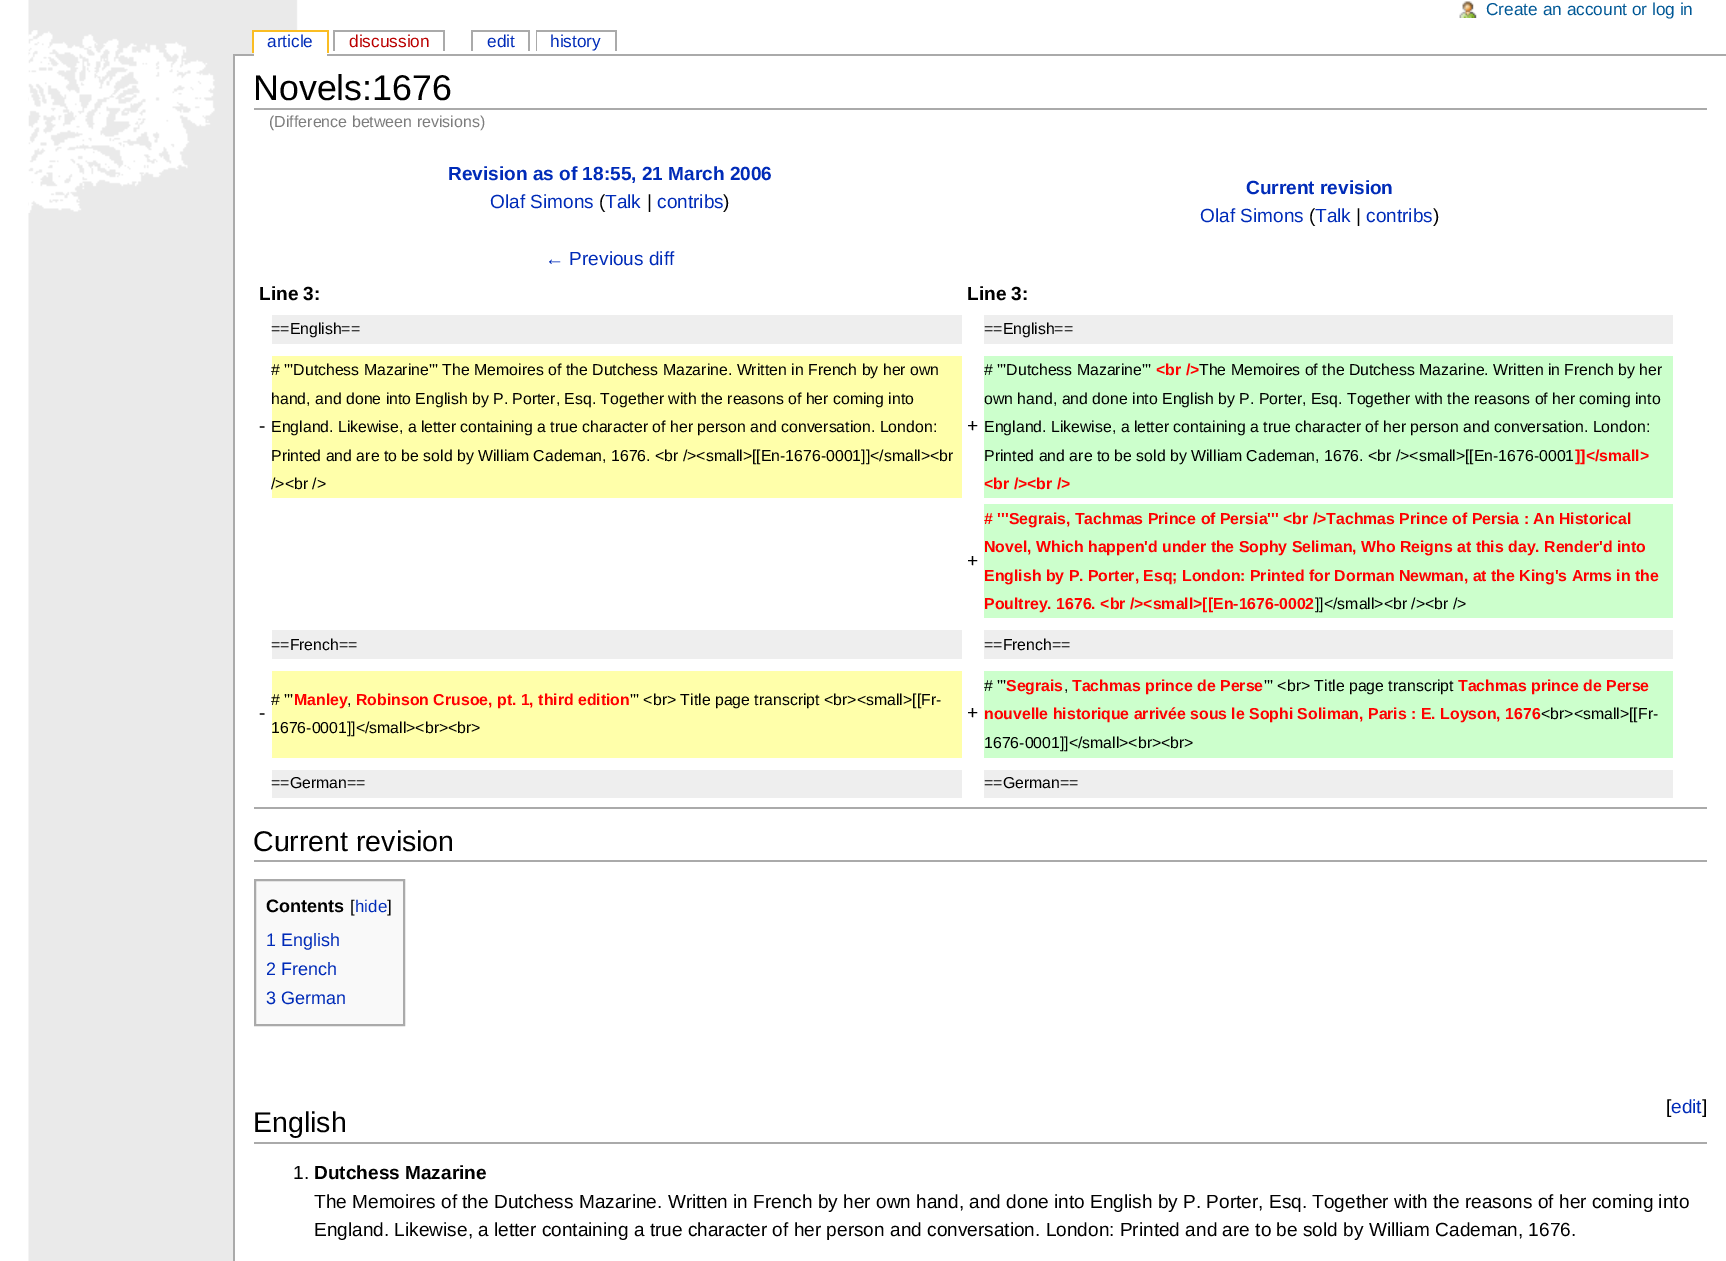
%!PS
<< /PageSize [1726 1261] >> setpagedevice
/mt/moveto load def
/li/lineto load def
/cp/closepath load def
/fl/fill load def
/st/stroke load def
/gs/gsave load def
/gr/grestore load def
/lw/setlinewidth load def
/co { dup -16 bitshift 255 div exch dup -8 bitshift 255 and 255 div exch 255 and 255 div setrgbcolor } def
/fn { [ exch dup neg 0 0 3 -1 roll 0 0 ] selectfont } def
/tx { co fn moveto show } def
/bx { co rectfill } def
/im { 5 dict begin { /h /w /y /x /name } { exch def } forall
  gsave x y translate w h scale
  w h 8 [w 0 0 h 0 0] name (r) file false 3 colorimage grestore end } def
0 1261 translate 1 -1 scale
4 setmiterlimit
0 0 1726 1261 16#FFFFFF bx
(media/1.raw) 0 0 1726 1261 im
(media/2.raw) 1459 1 18 17 im
(media/3.raw) 28 30 187 183 im
252 30 77 2 16#FABD23 bx
327 30 2 23 16#FABD23 bx
252 30 2 23 16#FABD23 bx
233 54 1493 2 16#AAAAAA bx
254 32 73 24 16#FFFFFF bx
333 30 111 2 16#AAAAAA bx
443 30 2 21 16#AAAAAA bx
333 30 2 21 16#AAAAAA bx
471 30 59 2 16#AAAAAA bx
528 30 2 21 16#AAAAAA bx
471 30 2 21 16#AAAAAA bx
536 30 81 2 16#AAAAAA bx
615 30 2 21 16#AAAAAA bx
536 30 2 21 16#AAAAAA bx
537 32 1 19 16#FFFFFF bx
235 56 63 1205 16#FFFFFF bx
233 54 2 1207 16#AAAAAA bx
254 108 1453 2 16#AAAAAA bx
272 315 690 29 16#EEEEEE bx
984 315 689 29 16#EEEEEE bx
272 356 690 142 16#FFFFAA bx
984 356 689 142 16#CCFFCC bx
984 504 689 114 16#CCFFCC bx
272 630 690 29 16#EEEEEE bx
984 630 689 29 16#EEEEEE bx
272 671 690 87 16#FFFFAA bx
984 671 689 87 16#CCFFCC bx
272 770 690 28 16#EEEEEE bx
984 770 689 28 16#EEEEEE bx
254 807 1453 2 16#AAAAAA bx
254 860 1453 2 16#AAAAAA bx
16#F9F9F9 co
255 880 mt 404 880 li 404 1025 li 255 1025 li cp gs fl gr
16#AAAAAA co
2 lw
st
254 1142 1453 2 16#AAAAAA bx
(Create an account or log in) 1486 15 /LiberationSans-Regular 17.25 16#005896 tx
(article) 267 47 /LiberationSans-Regular 17.25 16#002BB8 tx
(discussion) 349 47 /LiberationSans-Regular 17.25 16#BA0000 tx
(edit) 487 47 /LiberationSans-Regular 17.25 16#002BB8 tx
(history) 550 47 /LiberationSans-Regular 17.25 16#002BB8 tx
(Novels:1676) 253 100 /LiberationSans-Regular 35.75 16#000000 tx
(\(Difference between revisions\)) 269 127 /LiberationSans-Regular 16 16#7D7D7D tx
(Revision as of 18:55, 21 March 2006) 448 180 /LiberationSans-Bold 19.05 16#002BB8 tx
(Olaf Simons) 490 208 /LiberationSans-Regular 19.05 16#002BB8 tx
(\() 599 208 /LiberationSans-Regular 19.05 16#000000 tx
(Talk) 605 208 /LiberationSans-Regular 19.05 16#002BB8 tx
(|) 647 208 /LiberationSans-Regular 19.05 16#000000 tx
(contribs) 657 208 /LiberationSans-Regular 19.05 16#002BB8 tx
(\)) 723 208 /LiberationSans-Regular 19.05 16#000000 tx
(← Previous diff) 545 265 /LiberationSans-Regular 19.05 16#002BB8 tx
(Current revision) 1246 194 /LiberationSans-Bold 19.05 16#002BB8 tx
(Olaf Simons) 1200 222 /LiberationSans-Regular 19.05 16#002BB8 tx
(\() 1309 222 /LiberationSans-Regular 19.05 16#000000 tx
(Talk) 1315 222 /LiberationSans-Regular 19.05 16#002BB8 tx
(|) 1356 222 /LiberationSans-Regular 19.05 16#000000 tx
(contribs) 1366 222 /LiberationSans-Regular 19.05 16#002BB8 tx
(\)) 1433 222 /LiberationSans-Regular 19.05 16#000000 tx
(Line 3:) 259 300 /LiberationSans-Bold 19.05 16#000000 tx
(Line 3:) 967 300 /LiberationSans-Bold 19.05 16#000000 tx
(==English==) 271 334 /LiberationSans-Regular 15.85 16#000000 tx
(==English==) 984 334 /LiberationSans-Regular 15.85 16#000000 tx
(-) 259 432 /LiberationSans-Regular 19.05 16#000000 tx
(# '''Dutchess Mazarine''' The Memoires of the Dutchess Mazarine. Written in French by her own) 271 375 /LiberationSans-Regular 15.85 16#000000 tx
(hand, and done into English by P. Porter, Esq. Together with the reasons of her coming into) 271 404 /LiberationSans-Regular 15.85 16#000000 tx
(England. Likewise, a letter containing a true character of her person and conversation. London:) 271 432 /LiberationSans-Regular 15.85 16#000000 tx
(Printed and are to be sold by William Cademan, 1676. <br /><small>[[En-1676-0001]]</small><br) 271 461 /LiberationSans-Regular 15.85 16#000000 tx
(/><br />) 271 489 /LiberationSans-Regular 15.85 16#000000 tx
(+) 967 432 /LiberationSans-Regular 19.05 16#000000 tx
(# '''Dutchess Mazarine''') 984 375 /LiberationSans-Regular 15.85 16#000000 tx
(<br />) 1156 375 /LiberationSans-Bold 15.85 16#FF0000 tx
(The Memoires of the Dutchess Mazarine. Written in French by her) 1199 375 /LiberationSans-Regular 15.85 16#000000 tx
(own hand, and done into English by P. Porter, Esq. Together with the reasons of her coming into) 984 404 /LiberationSans-Regular 15.85 16#000000 tx
(England. Likewise, a letter containing a true character of her person and conversation. London:) 984 432 /LiberationSans-Regular 15.85 16#000000 tx
(Printed and are to be sold by William Cademan, 1676. <br /><small>[[En-1676-0001) 984 461 /LiberationSans-Regular 15.85 16#000000 tx
(]]</small>) 1575 461 /LiberationSans-Bold 15.85 16#FF0000 tx
(<br /><br />) 984 489 /LiberationSans-Bold 15.85 16#FF0000 tx
(+) 967 567 /LiberationSans-Regular 19.05 16#000000 tx
(# '''Segrais, Tachmas Prince of Persia''' <br />Tachmas Prince of Persia : An Historical) 984 524 /LiberationSans-Bold 15.85 16#FF0000 tx
(Novel, Which happen'd under the Sophy Seliman, Who Reigns at this day. Render'd into) 984 552 /LiberationSans-Bold 15.85 16#FF0000 tx
(English by P. Porter, Esq; London: Printed for Dorman Newman, at the King's Arms in the) 984 581 /LiberationSans-Bold 15.85 16#FF0000 tx
(Poultrey. 1676. <br /><small>[[En-1676-0002) 984 609 /LiberationSans-Bold 15.85 16#FF0000 tx
(]]</small><br /><br />) 1315 609 /LiberationSans-Regular 15.85 16#000000 tx
(==French==) 271 650 /LiberationSans-Regular 15.85 16#000000 tx
(==French==) 984 650 /LiberationSans-Regular 15.85 16#000000 tx
(-) 259 719 /LiberationSans-Regular 19.05 16#000000 tx
(# ''') 271 705 /LiberationSans-Regular 15.85 16#000000 tx
(Manley) 294 705 /LiberationSans-Bold 15.85 16#FF0000 tx
(,) 347 705 /LiberationSans-Regular 15.85 16#000000 tx
(Robinson Crusoe, pt. 1, third edition) 356 705 /LiberationSans-Bold 15.85 16#FF0000 tx
(''' <br> Title page transcript <br><small>[[Fr-) 630 705 /LiberationSans-Regular 15.85 16#000000 tx
(1676-0001]]</small><br><br>) 271 733 /LiberationSans-Regular 15.85 16#000000 tx
(+) 967 719 /LiberationSans-Regular 19.05 16#000000 tx
(# ''') 984 691 /LiberationSans-Regular 15.85 16#000000 tx
(Segrais) 1006 691 /LiberationSans-Bold 15.85 16#FF0000 tx
(,) 1064 691 /LiberationSans-Regular 15.85 16#000000 tx
(Tachmas prince de Perse) 1072 691 /LiberationSans-Bold 15.85 16#FF0000 tx
(''' <br> Title page transcript) 1264 691 /LiberationSans-Regular 15.85 16#000000 tx
(Tachmas prince de Perse) 1458 691 /LiberationSans-Bold 15.85 16#FF0000 tx
(nouvelle historique arrivée sous le Sophi Soliman, Paris : E. Loyson, 1676) 984 719 /LiberationSans-Bold 15.85 16#FF0000 tx
(<br><small>[[Fr-) 1541 719 /LiberationSans-Regular 15.85 16#000000 tx
(1676-0001]]</small><br><br>) 984 748 /LiberationSans-Regular 15.85 16#000000 tx
(==German==) 271 788 /LiberationSans-Regular 15.85 16#000000 tx
(==German==) 984 788 /LiberationSans-Regular 15.85 16#000000 tx
(Current revision) 253 851 /LiberationSans-Regular 28.5 16#000000 tx
(Contents) 266 912 /LiberationSans-Bold 18 16#000000 tx
([) 350 912 /LiberationSans-Regular 17 16#000000 tx
(hide) 355 912 /LiberationSans-Regular 17 16#002BB8 tx
(]) 387 912 /LiberationSans-Regular 17 16#000000 tx
(1 English) 266 946 /LiberationSans-Regular 18 16#002BB8 tx
(2 French) 266 975 /LiberationSans-Regular 18 16#002BB8 tx
(3 German) 266 1004 /LiberationSans-Regular 18 16#002BB8 tx
([) 1666 1113 /LiberationSans-Regular 19.05 16#000000 tx
(edit) 1671 1113 /LiberationSans-Regular 19.05 16#002BB8 tx
(]) 1702 1113 /LiberationSans-Regular 19.05 16#000000 tx
(English) 253 1132 /LiberationSans-Regular 28.5 16#000000 tx
(1.) 293 1179 /LiberationSans-Regular 19.05 16#000000 tx
(Dutchess Mazarine) 314 1179 /LiberationSans-Bold 19.05 16#000000 tx
(The Memoires of the Dutchess Mazarine. Written in French by her own hand, and done into English by P. Porter, Esq. Together with the reasons of her coming into) 314 1208 /LiberationSans-Regular 19.05 16#000000 tx
(England. Likewise, a letter containing a true character of her person and conversation. London: Printed and are to be sold by William Cademan, 1676.) 314 1236 /LiberationSans-Regular 19.05 16#000000 tx
showpage
